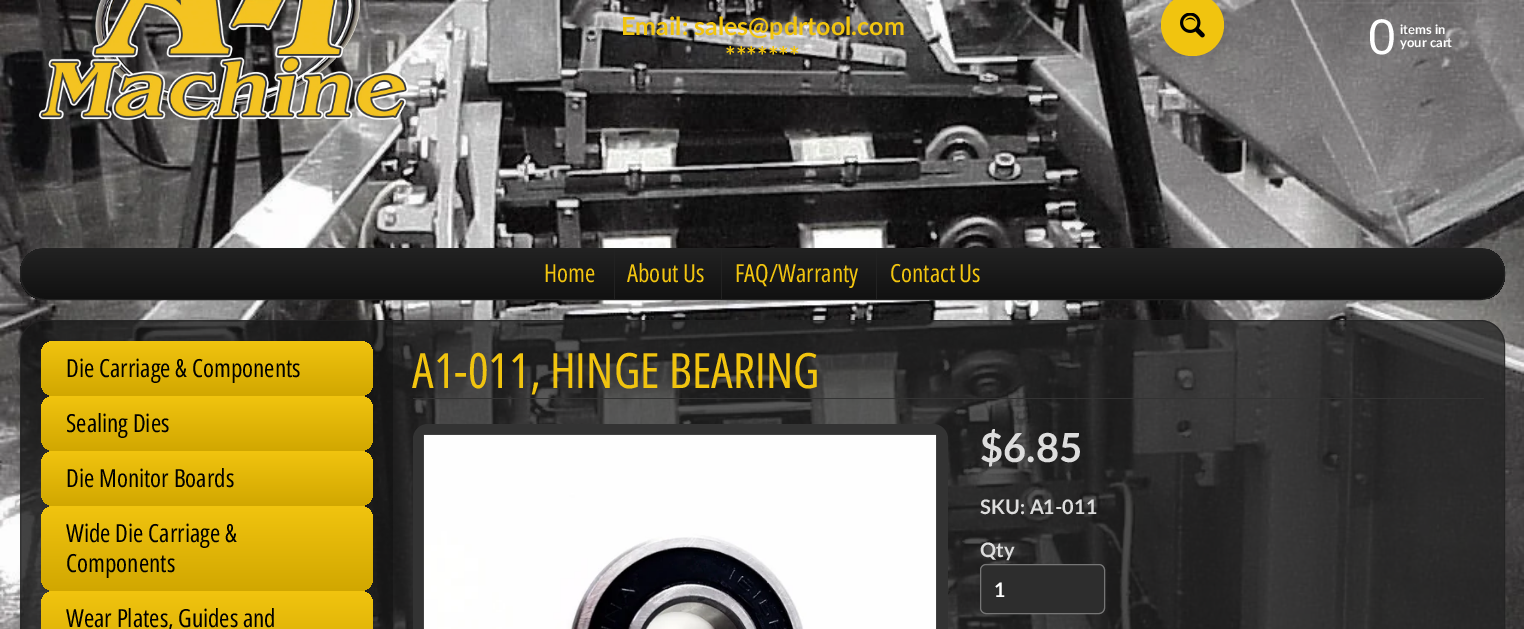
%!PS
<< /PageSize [1524 629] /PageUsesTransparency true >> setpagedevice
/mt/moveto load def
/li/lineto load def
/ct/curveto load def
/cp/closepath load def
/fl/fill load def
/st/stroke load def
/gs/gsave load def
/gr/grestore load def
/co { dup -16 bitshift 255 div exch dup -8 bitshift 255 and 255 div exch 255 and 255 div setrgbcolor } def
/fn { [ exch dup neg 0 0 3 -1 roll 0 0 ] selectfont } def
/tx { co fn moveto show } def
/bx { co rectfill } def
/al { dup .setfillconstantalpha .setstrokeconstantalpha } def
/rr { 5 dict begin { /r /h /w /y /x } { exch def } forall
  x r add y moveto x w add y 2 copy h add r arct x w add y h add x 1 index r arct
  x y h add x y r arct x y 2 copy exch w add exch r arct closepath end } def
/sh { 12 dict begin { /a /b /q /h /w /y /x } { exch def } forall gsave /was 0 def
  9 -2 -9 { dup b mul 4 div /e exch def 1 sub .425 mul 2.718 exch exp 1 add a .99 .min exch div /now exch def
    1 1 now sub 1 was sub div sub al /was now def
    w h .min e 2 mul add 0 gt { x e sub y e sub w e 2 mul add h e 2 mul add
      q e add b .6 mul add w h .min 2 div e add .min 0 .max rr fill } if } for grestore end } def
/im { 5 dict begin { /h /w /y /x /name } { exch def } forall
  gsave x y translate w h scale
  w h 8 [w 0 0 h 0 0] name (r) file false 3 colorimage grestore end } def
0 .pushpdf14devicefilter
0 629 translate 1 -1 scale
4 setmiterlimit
0 0 1524 629 16#FFFFFF bx
(media/1.raw) 0 0 1524 629 im
(media/2.raw) 38 0 371 121 im
16#000000 co
1165 -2 63 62 31 7.5 .1 sh
16#F1C40F co
1161 -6 63 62 31 rr fl
(media/3.raw) 1180 13 25 25 im
(media/4.raw) 1307 0 178 80 im
gs
20 248 1485 52 25 rr clip newpath
gs 20 249 mt 1505 249 li 1505 299 li 20 299 li cp clip newpath
<< /ShadingType 2 /ColorSpace /DeviceRGB /Coords [763 249 763 299] /Extend [true true] /Function << /FunctionType 2 /Domain [0 1] /C0 [.133 .133 .133] /C1 [.067 .067 .067] /N 1 >> >> shfill gr
gr
16#222222 co
20.5 248.5 1484 51 24.5 rr st
614 249 1 50 16#222222 bx
721 249 1 50 16#222222 bx
876 249 1 50 16#222222 bx
0.75 al
20 320 1485 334 25 rr fl
0.7 al
20.5 320.5 1484 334 24.5 rr st
0.25 al
16#000000 co
45 321 mt 393 321 li 393 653 li 45 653 li 31.5 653 21 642.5 21 629 ct 21 345 li 21 331.5 31.5 321 45 321 ct cp fl
1 al
gs 41 341 332 55 13 rr clip newpath
<< /ShadingType 2 /ColorSpace /DeviceRGB /Coords [207 341 207 396] /Extend [true true] /Function << /FunctionType 2 /Domain [0 1] /C0 [.945 .769 .059] /C1 [.82 .655 .004] /N 1 >> >> shfill gr
gs 41 396 332 55 13 rr clip newpath
<< /ShadingType 2 /ColorSpace /DeviceRGB /Coords [207 396 207 451] /Extend [true true] /Function << /FunctionType 2 /Domain [0 1] /C0 [.945 .769 .059] /C1 [.82 .655 .004] /N 1 >> >> shfill gr
gs 41 451 332 55 13 rr clip newpath
<< /ShadingType 2 /ColorSpace /DeviceRGB /Coords [207 451 207 506] /Extend [true true] /Function << /FunctionType 2 /Domain [0 1] /C0 [.945 .769 .059] /C1 [.82 .655 .004] /N 1 >> >> shfill gr
gs 41 506 332 85 13 rr clip newpath
<< /ShadingType 2 /ColorSpace /DeviceRGB /Coords [207 506 207 591] /Extend [true true] /Function << /FunctionType 2 /Domain [0 1] /C0 [.945 .769 .059] /C1 [.82 .655 .004] /N 1 >> >> shfill gr
gs 41 591 332 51 13 rr clip newpath
<< /ShadingType 2 /ColorSpace /DeviceRGB /Coords [207 591 207 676] /Extend [true true] /Function << /FunctionType 2 /Domain [0 1] /C0 [.945 .769 .059] /C1 [.82 .655 .004] /N 1 >> >> shfill gr
413 398 1071 1 16#333333 bx
413 424 535 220 15 rr fl
(media/5.raw) 423 434 514 195 im
16#2D2D2D co
980.5 564.5 124 49 5.5 rr gs fl gr
16#767676 co
st
(Email: sales@pdrtool.com) 621 35 /Lato-Bold 25 16#F1C40F tx
(*******) 725 65 /Lato-Bold 25 16#F1C40F tx
(0) 1368 54 /LiberationSans-Regular 50 16#FFFFFF tx
(items in) 1400 34 /Lato-Bold 13 16#FFFFFF tx
(your cart) 1400 47 /Lato-Bold 13 16#FFFFFF tx
(Home) 544 282 /OpenSansCondensed-Regular 25 16#F1C40F tx
(About Us) 627 282 /OpenSansCondensed-Regular 25 16#F1C40F tx
(FAQ/Warranty) 735 282 /OpenSansCondensed-Regular 25 16#F1C40F tx
(Contact Us) 890 282 /OpenSansCondensed-Regular 25 16#F1C40F tx
(Die Carriage & Components) 66 377 /OpenSansCondensed-Regular 25 16#000000 tx
(Sealing Dies) 66 432 /OpenSansCondensed-Regular 25 16#000000 tx
(Die Monitor Boards) 66 487 /OpenSansCondensed-Regular 25 16#000000 tx
(Wide Die Carriage &) 66 542 /OpenSansCondensed-Regular 25 16#000000 tx
(Components) 66 572 /OpenSansCondensed-Regular 25 16#000000 tx
(Wear Plates, Guides and) 66 627 /OpenSansCondensed-Regular 25 16#000000 tx
(A1-011, HINGE BEARING) 412 388 /OpenSansCondensed-Regular 48.75 16#F1C40F tx
($6.85) 980 462 /Lato-Bold 40 16#DDDDDD tx
(SKU: A1-011) 980 514 /Lato-Bold 20 16#DDDDDD tx
(Qty) 980 557 /Lato-Bold 20 16#DDDDDD tx
(1) 994 597 /Lato-Bold 20 16#FFFFFF tx
.poppdf14devicefilter showpage
